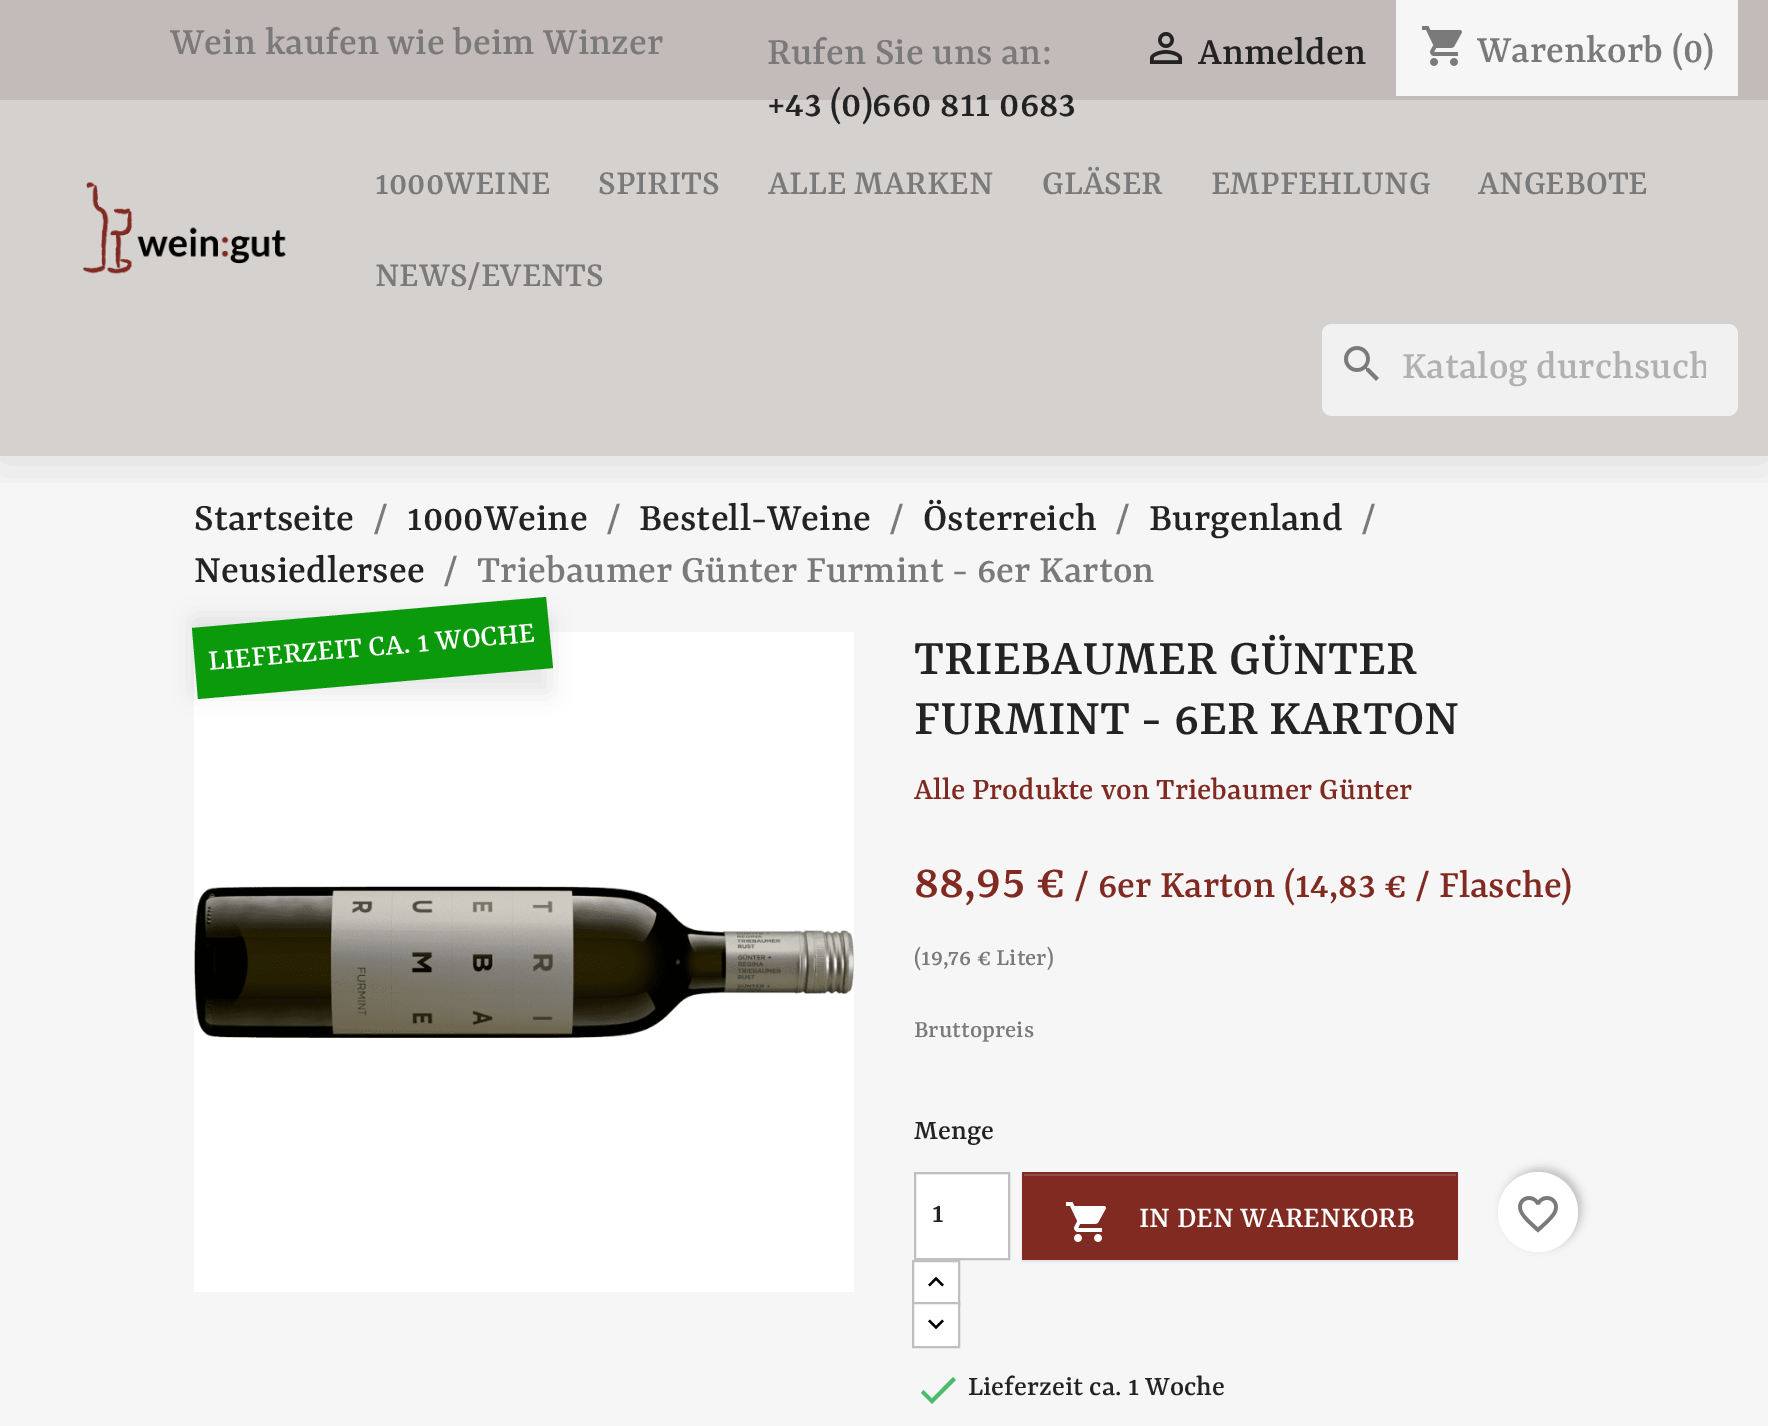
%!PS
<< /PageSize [1768 1426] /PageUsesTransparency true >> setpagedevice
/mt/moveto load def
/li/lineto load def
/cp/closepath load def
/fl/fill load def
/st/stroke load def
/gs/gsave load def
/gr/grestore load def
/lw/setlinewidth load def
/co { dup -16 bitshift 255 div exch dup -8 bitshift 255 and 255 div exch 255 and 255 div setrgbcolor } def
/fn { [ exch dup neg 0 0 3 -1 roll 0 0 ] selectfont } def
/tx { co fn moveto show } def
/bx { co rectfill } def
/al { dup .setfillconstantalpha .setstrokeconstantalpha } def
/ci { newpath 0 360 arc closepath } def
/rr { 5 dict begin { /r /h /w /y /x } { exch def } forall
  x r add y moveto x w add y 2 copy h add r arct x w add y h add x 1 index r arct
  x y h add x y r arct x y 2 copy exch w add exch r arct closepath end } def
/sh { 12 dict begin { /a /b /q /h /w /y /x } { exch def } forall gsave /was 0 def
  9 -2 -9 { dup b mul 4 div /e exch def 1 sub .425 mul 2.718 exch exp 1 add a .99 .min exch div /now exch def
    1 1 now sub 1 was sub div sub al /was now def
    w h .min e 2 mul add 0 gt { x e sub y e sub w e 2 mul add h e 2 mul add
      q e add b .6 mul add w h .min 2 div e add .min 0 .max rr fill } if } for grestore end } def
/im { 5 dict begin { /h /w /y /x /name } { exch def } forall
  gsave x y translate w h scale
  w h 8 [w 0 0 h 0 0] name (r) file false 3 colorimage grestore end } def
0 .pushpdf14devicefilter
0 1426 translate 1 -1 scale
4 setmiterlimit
0 0 1768 1426 16#D5D1CF bx
0 456 1768 970 16#F6F6F6 bx
gs
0 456 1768 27 rectclip
16#000000 co
0 4 1768 456 0 25 .11 sh
gr
0 0 1768 100 16#C2BBB9 bx
(media/1.raw) 1149 32 34 32 im
1396 0 342 96 16#F6F6F6 bx
(media/2.raw) 1422 26 40 40 im
(media/3.raw) 83 182 203 92 im
16#F1F1F1 co
1322 324 416 92 10 rr fl
(media/4.raw) 1344 346 35 35 im
194 632 660 660 16#FFFFFF bx
16#000000 co
194 620 356 72 0 12 .1 sh
16#0B9A0B co
192 628 mt 546 597 li 553 668 li 198 699 li cp fl
(media/5.raw) 194 886 660 152 im
16#FFFFFF co
915 1173 mt 1009 1173 li 1009 1259 li 915 1259 li cp gs fl gr
16#BFBFBF co
2 lw
st
914 1262 44 40 16#FFFFFF bx
16#BFBFBF co
913 1261 46 44 rectstroke
(media/6.raw) 928 1276 16 11 im
16#FFFFFF co
913 1303 mt 959 1303 li 959 1347 li 913 1347 li cp gs fl gr
16#BFBFBF co
st
(media/7.raw) 928 1319 16 11 im
16#000000 co
1022 1174 436 88 0 1 .07 sh
1022 1172 436 88 16#812A21 bx
1024 1174 432 2 16#944A42 bx
(media/8.raw) 1065 1202 41 40 im
16#000000 co
1502 1168 80 80 40 4 .2 sh
16#FFFFFF co
1538 1212 40 ci fl
(media/9.raw) 1518 1196 40 37 im
16#4CBB6C co
932 1398.5 mt 953 1377 li 956 1380 li 932 1404 li 921 1393 li 923.5 1390 li cp fl
(Wein kaufen wie beim Winzer) 170 54 /Rasa-Medium 41.6 16#7A7A7A tx
(Rufen Sie uns an:) 767 64 /Rasa-Medium 41.6 16#7A7A7A tx
(+43 \(0\)660 811 0683) 767 116 /Rasa-Medium 41.6 16#232323 tx
(Anmelden) 1198 64 /Rasa-Medium 41.6 16#232323 tx
(Warenkorb \(0\)) 1477 62 /Rasa-Medium 41.6 16#7A7A7A tx
(1000WEINE) 375 194 /Rasa-Medium 37.5 16#7A7A7A tx
(SPIRITS) 598 194 /Rasa-Medium 37.5 16#7A7A7A tx
(ALLE MARKEN) 768 194 /Rasa-Medium 37.5 16#7A7A7A tx
(GLÄSER) 1042 194 /Rasa-Medium 37.5 16#7A7A7A tx
(EMPFEHLUNG) 1211 194 /Rasa-Medium 37.5 16#7A7A7A tx
(ANGEBOTE) 1478 194 /Rasa-Medium 37.5 16#7A7A7A tx
(NEWS/EVENTS) 375 286 /Rasa-Medium 37.5 16#7A7A7A tx
gs
1402 344 304 52 rectclip
(Katalog durchsuch) 1402 378 /Rasa-Medium 41.6 16#B1B1B1 tx
gr
(Startseite) 194 530 /Rasa-Medium 41.6 16#232323 tx
(/) 373 530 /Rasa-Medium 41.6 16#7A7A7A tx
(1000Weine) 407 530 /Rasa-Medium 41.6 16#232323 tx
(/) 606 530 /Rasa-Medium 41.6 16#7A7A7A tx
(Bestell-Weine) 639 530 /Rasa-Medium 41.6 16#232323 tx
(/) 889 530 /Rasa-Medium 41.6 16#7A7A7A tx
(Österreich) 923 530 /Rasa-Medium 41.6 16#232323 tx
(/) 1115 530 /Rasa-Medium 41.6 16#7A7A7A tx
(Burgenland) 1149 530 /Rasa-Medium 41.6 16#232323 tx
(/) 1361 530 /Rasa-Medium 41.6 16#7A7A7A tx
(Neusiedlersee) 194 582 /Rasa-Medium 41.6 16#232323 tx
(/) 443 582 /Rasa-Medium 41.6 16#7A7A7A tx
(Triebaumer Günter Furmint - 6er Karton) 477 582 /Rasa-Medium 41.6 16#7A7A7A tx
/Rasa-Medium 32 fn
16#FFFFFF co
gs 209 670 translate -5 rotate 0 0 mt (LIEFERZEIT CA. 1 WOCHE) show gr
(TRIEBAUMER GÜNTER) 914 674 /Rasa-Medium 54 16#232323 tx
(FURMINT - 6ER KARTON) 914 734 /Rasa-Medium 54 16#232323 tx
(Alle Produkte von Triebaumer Günter) 914 799 /Rasa-Medium 33.25 16#812A21 tx
(88,95 €) 914 897 /Rasa-Medium 54 16#812A21 tx
(/ 6er Karton \(14,83 € / Flasche\)) 1074 897 /Rasa-Medium 41.6 16#812A21 tx
(\(19,76 € Liter\)) 914 965 /Rasa-Medium 26 16#7A7A7A tx
(Bruttopreis) 914 1037 /Rasa-Medium 26 16#7A7A7A tx
(Menge) 914 1139 /Rasa-Medium 30 16#232323 tx
(1) 932 1222 /Rasa-Medium 32 16#232323 tx
(IN DEN WARENKORB) 1139 1227 /Rasa-Medium 32 16#FFFFFF tx
(Lieferzeit ca. 1 Woche) 968 1395 /Rasa-Medium 30 16#232323 tx
.poppdf14devicefilter showpage
